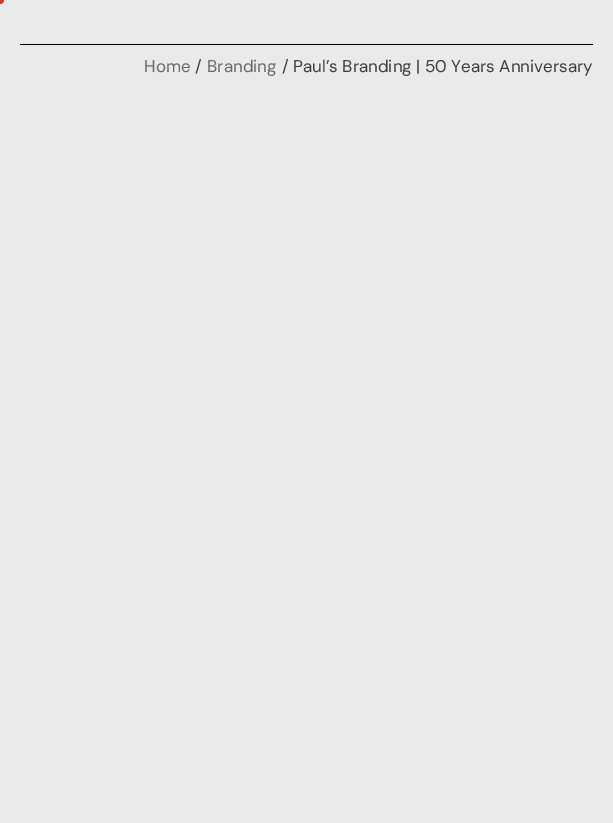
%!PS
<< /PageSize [613 823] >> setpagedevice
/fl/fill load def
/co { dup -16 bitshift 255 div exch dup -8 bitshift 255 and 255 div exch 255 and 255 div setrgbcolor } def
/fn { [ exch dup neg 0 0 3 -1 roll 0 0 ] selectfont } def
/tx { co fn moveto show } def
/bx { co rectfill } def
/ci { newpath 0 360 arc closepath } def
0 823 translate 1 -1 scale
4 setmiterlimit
0 0 613 823 16#EAEAEA bx
16#D83C27 co
0 0 4 ci fl
20 44 573 1 16#000000 bx
(Home) 144 72 /DMSans-Regular 17 16#686868 tx
(/) 195 72 /DMSans-Regular 17 16#3D3D3D tx
(Branding) 207 72 /DMSans-Regular 17 16#686868 tx
(/) 282 72 /DMSans-Regular 17 16#3D3D3D tx
(Paul’s Branding | 50 Years Anniversary) 293 72 /DMSans-Regular 17 16#3D3D3D tx
showpage
